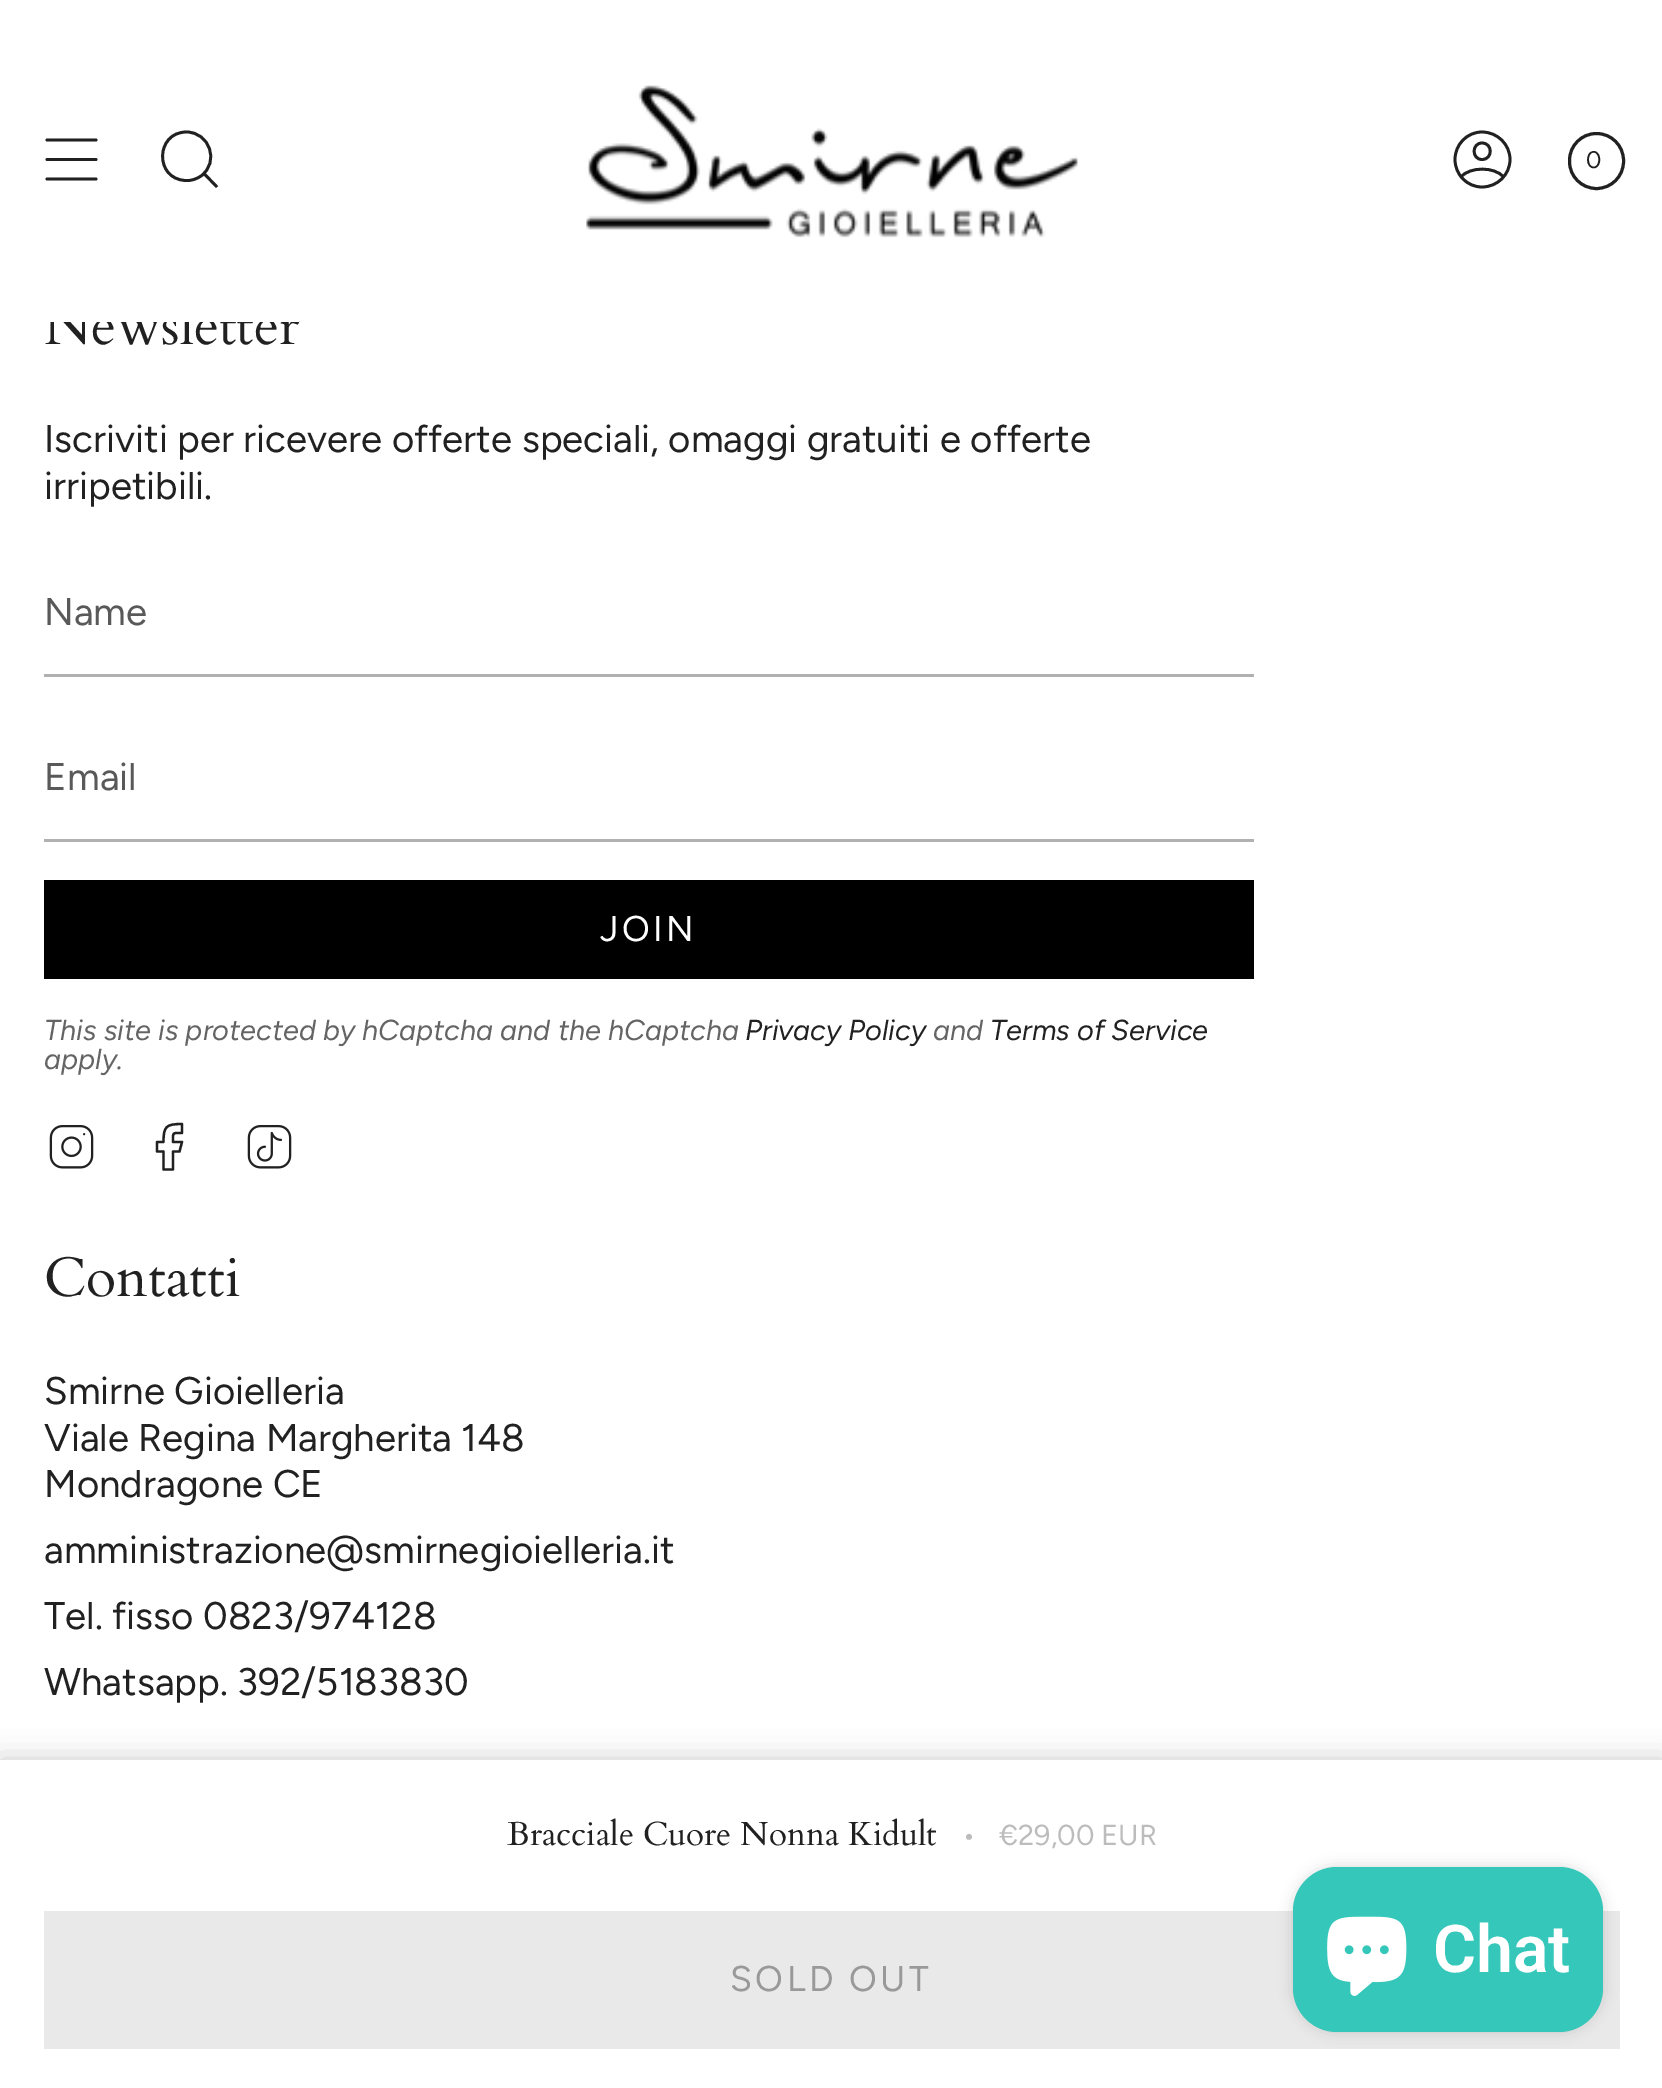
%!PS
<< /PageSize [1662 2088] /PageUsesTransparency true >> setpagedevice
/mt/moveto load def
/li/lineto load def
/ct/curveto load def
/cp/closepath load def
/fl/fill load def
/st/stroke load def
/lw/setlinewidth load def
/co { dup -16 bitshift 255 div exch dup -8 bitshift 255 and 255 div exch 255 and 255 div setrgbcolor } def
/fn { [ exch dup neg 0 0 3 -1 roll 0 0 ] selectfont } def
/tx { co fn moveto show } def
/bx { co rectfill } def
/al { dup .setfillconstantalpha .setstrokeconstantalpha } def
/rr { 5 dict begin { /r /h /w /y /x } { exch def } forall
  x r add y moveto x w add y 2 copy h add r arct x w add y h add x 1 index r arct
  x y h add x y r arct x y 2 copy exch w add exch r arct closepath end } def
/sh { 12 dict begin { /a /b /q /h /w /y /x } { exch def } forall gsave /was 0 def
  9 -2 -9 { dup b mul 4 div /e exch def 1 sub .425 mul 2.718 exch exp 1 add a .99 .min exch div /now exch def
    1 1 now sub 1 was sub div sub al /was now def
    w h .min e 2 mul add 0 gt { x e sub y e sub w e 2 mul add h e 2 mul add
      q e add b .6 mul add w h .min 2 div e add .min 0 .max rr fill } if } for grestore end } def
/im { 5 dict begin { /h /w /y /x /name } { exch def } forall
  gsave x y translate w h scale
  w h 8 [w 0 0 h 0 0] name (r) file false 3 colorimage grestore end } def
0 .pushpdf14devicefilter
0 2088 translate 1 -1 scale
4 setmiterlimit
0 0 1662 2088 16#FFFFFF bx
16#212121 co
2.8 lw
1 setlinecap
1 setlinejoin
47 140 mt 96 140 li 47 159.5 mt 96 159.5 li 47 179 mt 96 179 li st
0 setlinecap
0 setlinejoin
186.5 132 mt 209.5 132 220 162 201 176 ct 196.5 179 191 181 185.5 180.5 ct 154 179 155.5 132 186.5 132 ct cp 204 173.5 mt 217 187 li st
(media/1.raw) 586 85 492 153 im
1 setlinecap
1 setlinejoin
1482 132 mt 1467 132 1455 144.5 1455 159.5 ct 1455 174.5 1467 187 1482 187 ct 1497.5 187 1510 174.5 1510 159.5 ct 1510 144.5 1497.5 132 1482 132 ct cp 1461 177 mt 1469.5 166.5 1495 166.5 1503.5 177 ct 1482 159.5 mt 1493 159.5 1493 143 1482 143 ct 1471.5 143 1471.5 159.5 1482 159.5 ct cp st
3 lw
0 setlinecap
0 setlinejoin
1569.5 133.5 54 55 27 rr st
16#000000 co
0 1760 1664 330 0 14 .2 sh
0 1760 1662 328 16#FFFFFF bx
44 1911 1576 138 16#E9E9E9 bx
44 674 1210 3 16#B1B1B1 bx
44 839 1210 3 16#B1B1B1 bx
44 880 1210 99 16#000000 bx
(media/2.raw) 49 1125 45 44 im
16#212121 co
2.3 lw
1 setlinecap
1 setlinejoin
182 1124 mt 166 1124 163.5 1126.5 163.5 1142 ct 157 1142 li 157 1151.5 li 163.5 1151.5 li 163.5 1169.5 li 173 1169.5 li 173 1151.5 li 179.5 1151.5 li 182 1142 li 173 1142 li 173 1132 172 1133 182 1133 ct cp st
(media/3.raw) 247 1125 45 44 im
16#000000 co
1293 1867 310 165 44 7 .15 sh
16#34C7BA co
1293 1867 310 165 44 rr fl
(media/4.raw) 1327 1916 80 80 im
(0) 1586 168 /Figtree-Regular 24 16#212121 tx
(Bracciale Cuore Nonna Kidult) 507 1845 /Cardo-Regular 33.25 16#212121 tx
(•) 962 1845 /Figtree-Regular 28.9 16#BCBCBC tx
(€29,00 EUR) 999 1845 /Figtree-Regular 28.9 16#BCBCBC tx
/Figtree-Regular 35.75 fn
16#999999 co
730 1991 mt 3.5 0 (SOLD OUT) ashow
(Newsletter) 44 344 /Cardo-Regular 55.5 16#212121 tx
45 299 254 23 16#FFFFFF bx
(Iscriviti per ricevere offerte speciali, omaggi gratuiti e offerte) 44 452 /Figtree-Regular 38.5 16#212121 tx
(irripetibili.) 44 499 /Figtree-Regular 38.5 16#212121 tx
(Name) 44 625 /Figtree-Regular 38.5 16#595959 tx
(Email) 44 790 /Figtree-Regular 38.5 16#595959 tx
/Figtree-Regular 35.75 fn
16#FFFFFF co
600 941 mt 3.5 0 (JOIN) ashow
(This site is protected by hCaptcha and the hCaptcha) 44 1040 /Figtree-Italic 28.9 16#646464 tx
(Privacy Policy) 745 1040 /Figtree-Italic 28.9 16#212121 tx
(and) 933 1040 /Figtree-Italic 28.9 16#646464 tx
(Terms of Service) 990 1040 /Figtree-Italic 28.9 16#212121 tx
(apply.) 44 1069 /Figtree-Italic 28.9 16#646464 tx
(Contatti) 44 1296 /Cardo-Regular 55.5 16#212121 tx
(Smirne Gioielleria) 44 1404 /Figtree-Regular 38.5 16#212121 tx
(Viale Regina Margherita 148) 44 1451 /Figtree-Regular 38.5 16#212121 tx
(Mondragone CE) 44 1497 /Figtree-Regular 38.5 16#212121 tx
(amministrazione@smirnegioielleria.it) 44 1563 /Figtree-Regular 38.5 16#212121 tx
(Tel. fisso 0823/974128) 44 1629 /Figtree-Regular 38.5 16#212121 tx
(Whatsapp. 392/5183830) 44 1695 /Figtree-Regular 38.5 16#212121 tx
(Chat) 1433 1972 /Roboto-SemiBold 66 16#FFFFFF tx
.poppdf14devicefilter showpage
